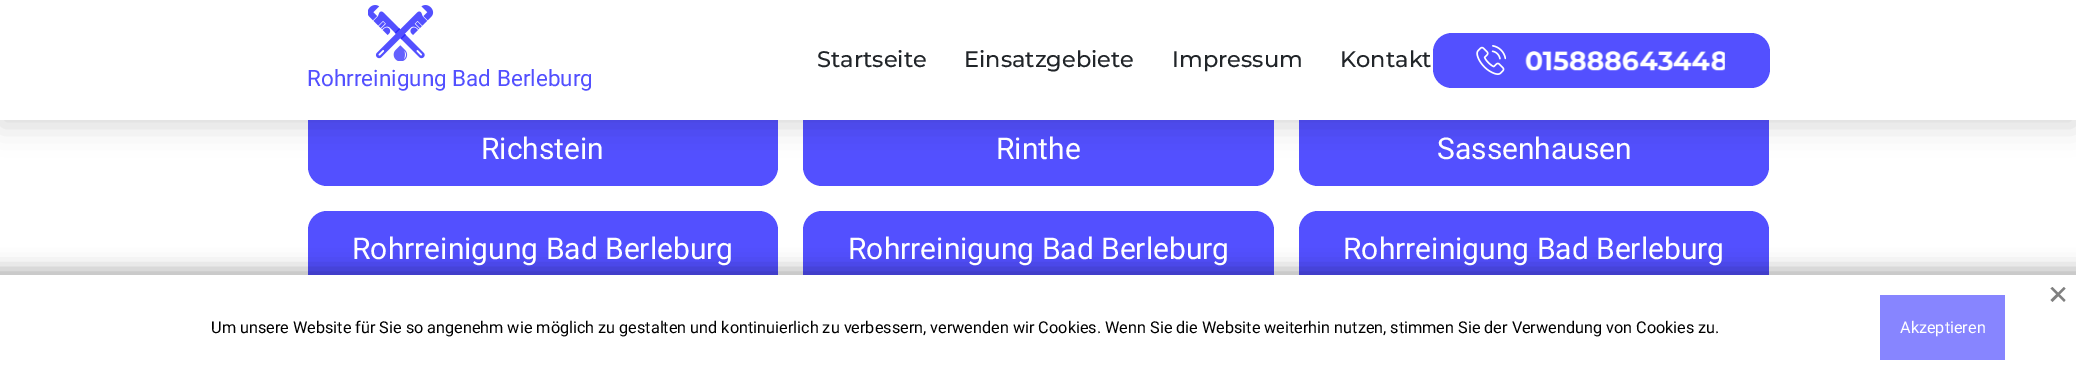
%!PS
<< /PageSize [2076 379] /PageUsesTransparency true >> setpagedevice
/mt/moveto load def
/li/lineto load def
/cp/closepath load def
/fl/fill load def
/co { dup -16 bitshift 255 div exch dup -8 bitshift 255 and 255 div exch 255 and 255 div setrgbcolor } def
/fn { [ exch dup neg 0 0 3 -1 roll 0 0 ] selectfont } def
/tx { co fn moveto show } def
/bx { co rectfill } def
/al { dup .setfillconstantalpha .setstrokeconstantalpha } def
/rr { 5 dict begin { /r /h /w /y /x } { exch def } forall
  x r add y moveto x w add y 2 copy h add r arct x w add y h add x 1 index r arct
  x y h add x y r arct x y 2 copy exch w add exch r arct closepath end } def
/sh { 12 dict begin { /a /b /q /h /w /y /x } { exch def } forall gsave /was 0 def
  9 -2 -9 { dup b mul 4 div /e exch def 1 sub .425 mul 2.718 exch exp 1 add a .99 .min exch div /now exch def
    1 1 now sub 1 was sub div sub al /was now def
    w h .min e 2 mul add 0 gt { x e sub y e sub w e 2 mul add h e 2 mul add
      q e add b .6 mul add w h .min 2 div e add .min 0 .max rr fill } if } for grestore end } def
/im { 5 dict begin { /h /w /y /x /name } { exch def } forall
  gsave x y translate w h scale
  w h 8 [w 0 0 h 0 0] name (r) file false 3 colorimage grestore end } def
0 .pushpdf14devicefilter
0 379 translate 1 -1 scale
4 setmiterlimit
0 0 2076 379 16#FFFFFF bx
16#5350FF co
308 66 470 120 19 rr fl
803 66 471 120 19 rr fl
1299 66 470 120 19 rr fl
16#000000 co
0 6 2076 120 0 14 .15 sh
0 0 2076 120 16#FFFFFF bx
16#5350FF co
1433 33 337 55 19 rr fl
(media/1.raw) 1476 45 30 30 im
(media/2.raw) 1525 51 200 20 im
(media/3.raw) 368 5 66 56 im
308 211 470 120 19 rr fl
803 211 471 120 19 rr fl
1299 211 470 120 19 rr fl
16#000000 co
-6 269 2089 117 0 9.5 .3 sh
0 275 2076 104 16#FFFFFF bx
16#808080 co
2050.5 288.5 mt 2052.5 287 li 2065.5 300 li 2064 302 li cp fl
2064 287 mt 2065.5 288.5 li 2052.5 302 li 2050.5 300 li cp fl
1880 295 125 65 16#8785FF bx
(Startseite) 817 67 /Montserrat-Medium 22.5 16#212529 tx
(Einsatzgebiete) 964 67 /Montserrat-Medium 22.5 16#212529 tx
(Impressum) 1172 67 /Montserrat-Medium 22.5 16#212529 tx
(Kontakt) 1340 67 /Montserrat-Medium 22.5 16#212529 tx
(Rohrreinigung Bad Berleburg) 307 86 /Roboto-Regular 22.5 16#5350FF tx
(Richstein) 481 159 /Roboto-Regular 30 16#FFFFFF tx
(Rinthe) 996 159 /Roboto-Regular 30 16#FFFFFF tx
(Sassenhausen) 1437 159 /Roboto-Regular 30 16#FFFFFF tx
(Rohrreinigung Bad Berleburg) 352 259 /Roboto-Regular 30 16#FFFFFF tx
(Rohrreinigung Bad Berleburg) 848 259 /Roboto-Regular 30 16#FFFFFF tx
(Rohrreinigung Bad Berleburg) 1343 259 /Roboto-Regular 30 16#FFFFFF tx
(Um unsere Website für Sie so angenehm wie möglich zu gestalten und kontinuierlich zu verbessern, verwenden wir Cookies. Wenn Sie die Website weiterhin nutzen, stimmen Sie der Verwendung von Cookies zu.) 211 333 /Roboto-Regular 16.25 16#000000 tx
(Akzeptieren) 1900 333 /Roboto-Regular 16.25 16#FFFFFF tx
.poppdf14devicefilter showpage
